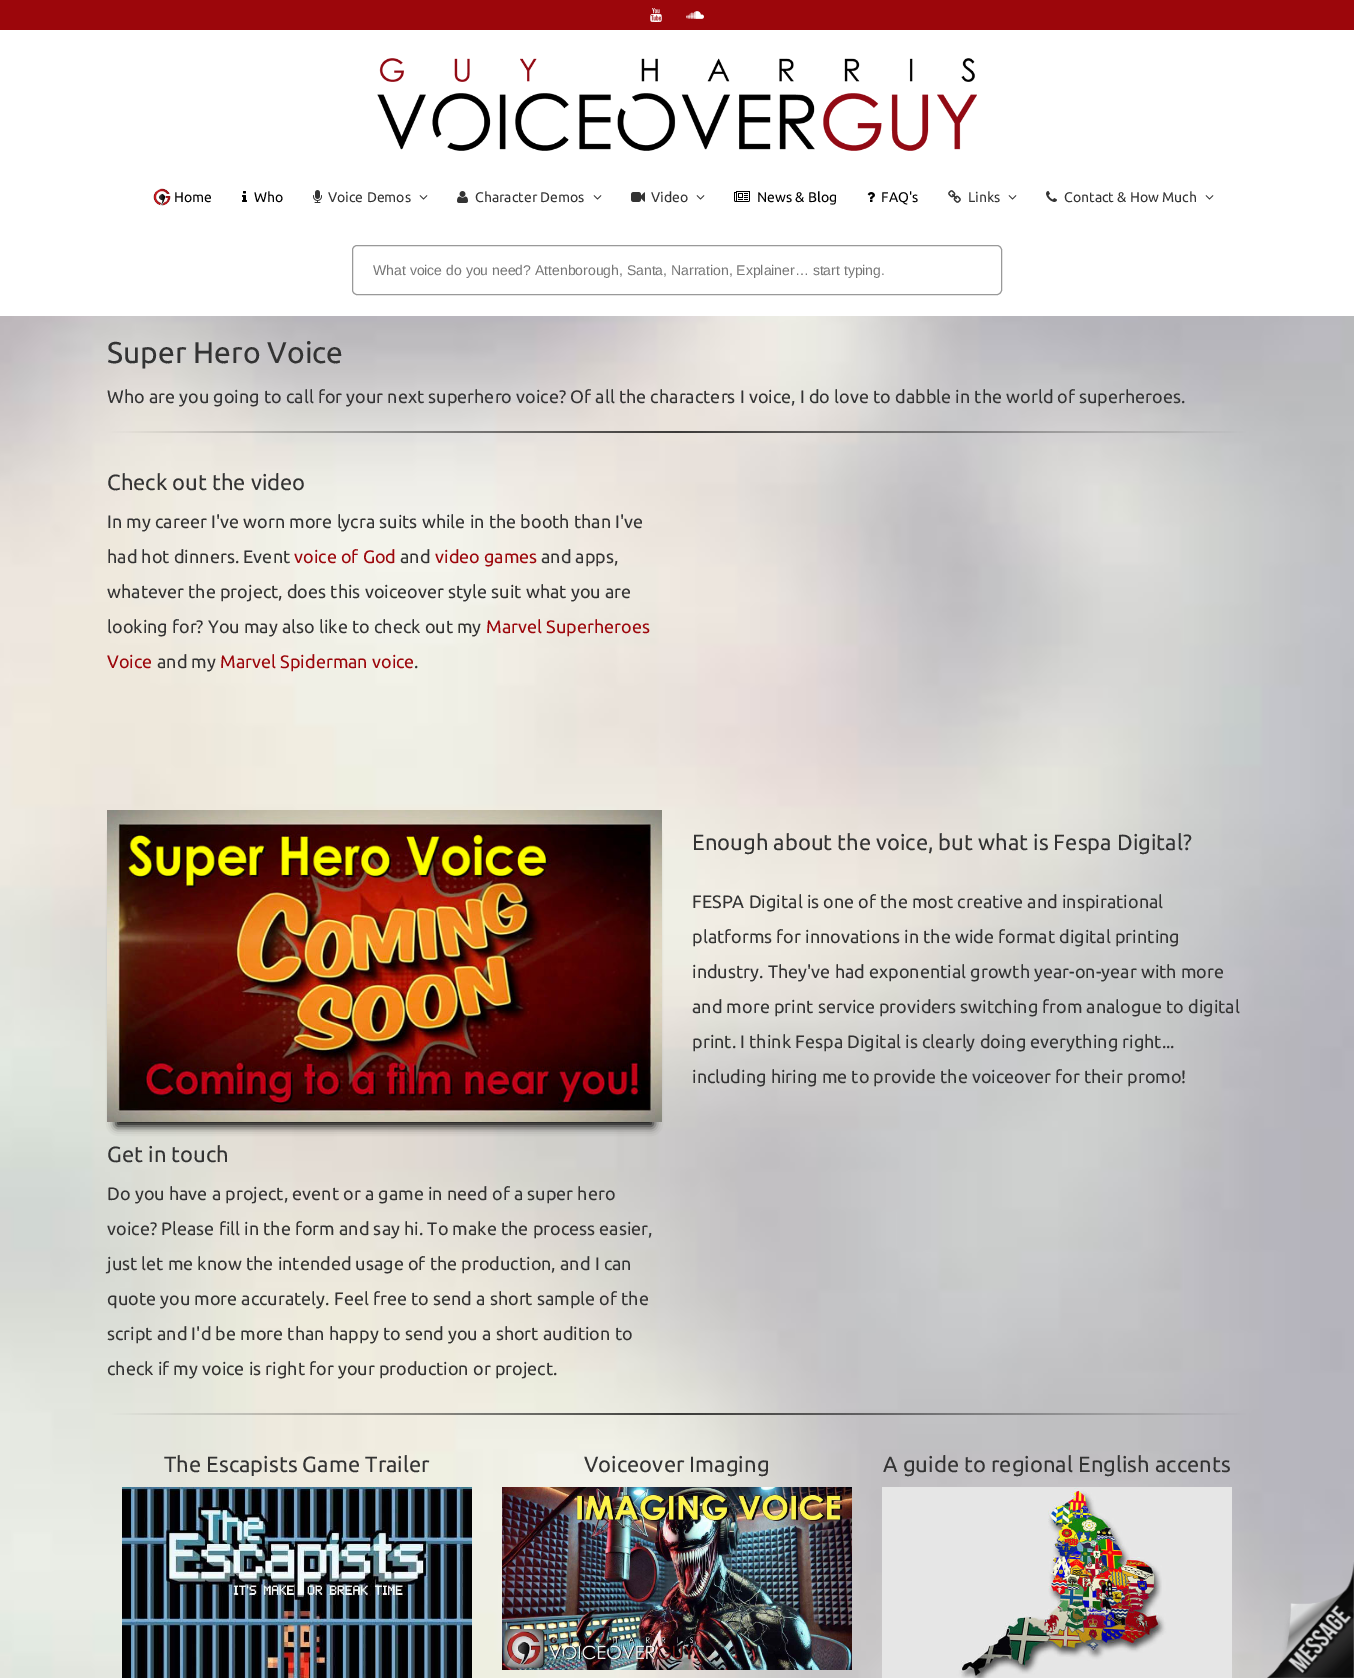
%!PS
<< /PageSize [1354 1678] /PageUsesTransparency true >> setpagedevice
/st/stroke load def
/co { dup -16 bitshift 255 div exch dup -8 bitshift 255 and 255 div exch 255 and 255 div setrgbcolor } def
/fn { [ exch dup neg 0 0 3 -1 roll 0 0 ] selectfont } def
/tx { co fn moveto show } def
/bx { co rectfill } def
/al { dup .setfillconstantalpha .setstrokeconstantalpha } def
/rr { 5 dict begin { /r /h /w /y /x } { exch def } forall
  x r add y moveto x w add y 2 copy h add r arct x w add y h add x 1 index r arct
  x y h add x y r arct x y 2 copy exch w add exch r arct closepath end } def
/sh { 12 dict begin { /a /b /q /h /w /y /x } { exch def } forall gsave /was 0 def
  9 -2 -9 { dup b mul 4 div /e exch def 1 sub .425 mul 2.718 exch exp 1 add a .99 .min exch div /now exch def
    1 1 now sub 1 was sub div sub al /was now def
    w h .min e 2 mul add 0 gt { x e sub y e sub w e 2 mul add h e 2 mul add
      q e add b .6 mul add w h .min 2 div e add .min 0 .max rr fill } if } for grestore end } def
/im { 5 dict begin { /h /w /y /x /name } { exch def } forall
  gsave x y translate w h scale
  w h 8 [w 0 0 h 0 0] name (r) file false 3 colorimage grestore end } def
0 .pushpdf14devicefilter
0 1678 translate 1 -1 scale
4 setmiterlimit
0 0 1354 1678 16#FFFFFF bx
0 0 1354 30 16#9C060B bx
(media/1.raw) 650 8 12 14 im
(media/2.raw) 686 11 18 8 im
(media/3.raw) 377 58 600 93 im
(media/4.raw) 153 188 18 18 im
(media/5.raw) 242 191 5 11 im
(media/6.raw) 313 190 9 13 im
(media/7.raw) 419 195 9 5 im
(media/8.raw) 457 191 11 12 im
(media/7.raw) 593 195 9 5 im
(media/9.raw) 631 192 14 10 im
(media/7.raw) 696 195 9 5 im
(media/10.raw) 734 191 16 11 im
(media/11.raw) 867 192 8 10 im
(media/12.raw) 948 190 13 13 im
(media/7.raw) 1008 195 9 5 im
(media/13.raw) 1046 191 11 11 im
(media/7.raw) 1205 195 9 5 im
16#999999 co
352.5 245.5 649 49 4.5 rr st
(media/14.raw) 0 316 1354 1362 im
16#000000 co
116 832 537 294 0 4.5 1 sh
(media/15.raw) 107 810 555 312 im
(media/16.raw) 122 1487 350 191 im
(media/17.raw) 502 1487 350 183 im
(media/18.raw) 882 1487 350 191 im
(media/19.raw) 1267 1562 87 116 im
(Home) 174 202 /Ubuntu-Regular 14 16#000000 tx
(Who) 254 202 /Ubuntu-Regular 14 16#000000 tx
(Voice Demos) 328 202 /Ubuntu-Regular 14 16#333333 tx
(Character Demos) 475 202 /Ubuntu-Regular 14 16#333333 tx
(Video) 651 202 /Ubuntu-Regular 14 16#333333 tx
(News & Blog) 757 202 /Ubuntu-Regular 14 16#000000 tx
(FAQ's) 881 202 /Ubuntu-Regular 14 16#000000 tx
(Links) 968 202 /Ubuntu-Regular 14 16#333333 tx
(Contact & How Much) 1064 202 /Ubuntu-Regular 14 16#333333 tx
(What voice do you need? Attenborough, Santa, Narration, Explainer… start typing.) 373 275 /LiberationSans-Regular 14 16#757575 tx
(Super Hero Voice) 107 363 /Ubuntu-Regular 30 16#333333 tx
(Who are you going to call for your next superhero voice? Of all the characters I voice, I do love to dabble in the world of superheroes.) 107 403 /Ubuntu-Regular 18 16#333333 tx
(Check out the video) 107 490 /Ubuntu-Regular 22 16#333333 tx
(In my career I've worn more lycra suits while in the booth than I've) 107 528 /Ubuntu-Regular 18 16#333333 tx
(had hot dinners. Event) 107 563 /Ubuntu-Regular 18 16#333333 tx
(voice of God) 294 563 /Ubuntu-Regular 18 16#9C060B tx
(and) 400 563 /Ubuntu-Regular 18 16#333333 tx
(video games) 435 563 /Ubuntu-Regular 18 16#9C060B tx
(and apps,) 541 563 /Ubuntu-Regular 18 16#333333 tx
(whatever the project, does this voiceover style suit what you are) 107 598 /Ubuntu-Regular 18 16#333333 tx
(looking for? You may also like to check out my) 107 633 /Ubuntu-Regular 18 16#333333 tx
(Marvel Superheroes) 486 633 /Ubuntu-Regular 18 16#9C060B tx
(Voice) 107 668 /Ubuntu-Regular 18 16#9C060B tx
(and my) 157 668 /Ubuntu-Regular 18 16#333333 tx
(Marvel Spiderman voice) 220 668 /Ubuntu-Regular 18 16#9C060B tx
(.) 414 668 /Ubuntu-Regular 18 16#333333 tx
(Enough about the voice, but what is Fespa Digital?) 692 850 /Ubuntu-Regular 22 16#333333 tx
(FESPA Digital is one of the most creative and inspirational) 692 908 /Ubuntu-Regular 18 16#333333 tx
(platforms for innovations in the wide format digital printing) 692 943 /Ubuntu-Regular 18 16#333333 tx
(industry. They've had exponential growth year-on-year with more) 692 978 /Ubuntu-Regular 18 16#333333 tx
(and more print service providers switching from analogue to digital) 692 1013 /Ubuntu-Regular 18 16#333333 tx
(print. I think Fespa Digital is clearly doing everything right...) 692 1048 /Ubuntu-Regular 18 16#333333 tx
(including hiring me to provide the voiceover for their promo!) 692 1083 /Ubuntu-Regular 18 16#333333 tx
(Get in touch) 107 1162 /Ubuntu-Regular 22 16#333333 tx
(Do you have a project, event or a game in need of a super hero) 107 1200 /Ubuntu-Regular 18 16#333333 tx
(voice? Please fill in the form and say hi. To make the process easier,) 107 1235 /Ubuntu-Regular 18 16#333333 tx
(just let me know the intended usage of the production, and I can) 107 1270 /Ubuntu-Regular 18 16#333333 tx
(quote you more accurately. Feel free to send a short sample of the) 107 1305 /Ubuntu-Regular 18 16#333333 tx
(script and I'd be more than happy to send you a short audition to) 107 1340 /Ubuntu-Regular 18 16#333333 tx
(check if my voice is right for your production or project.) 107 1375 /Ubuntu-Regular 18 16#333333 tx
(The Escapists Game Trailer) 164 1472 /Ubuntu-Regular 22 16#333333 tx
(Voiceover Imaging) 584 1472 /Ubuntu-Regular 22 16#333333 tx
(A guide to regional English accents) 883 1472 /Ubuntu-Regular 22 16#333333 tx
.poppdf14devicefilter showpage
